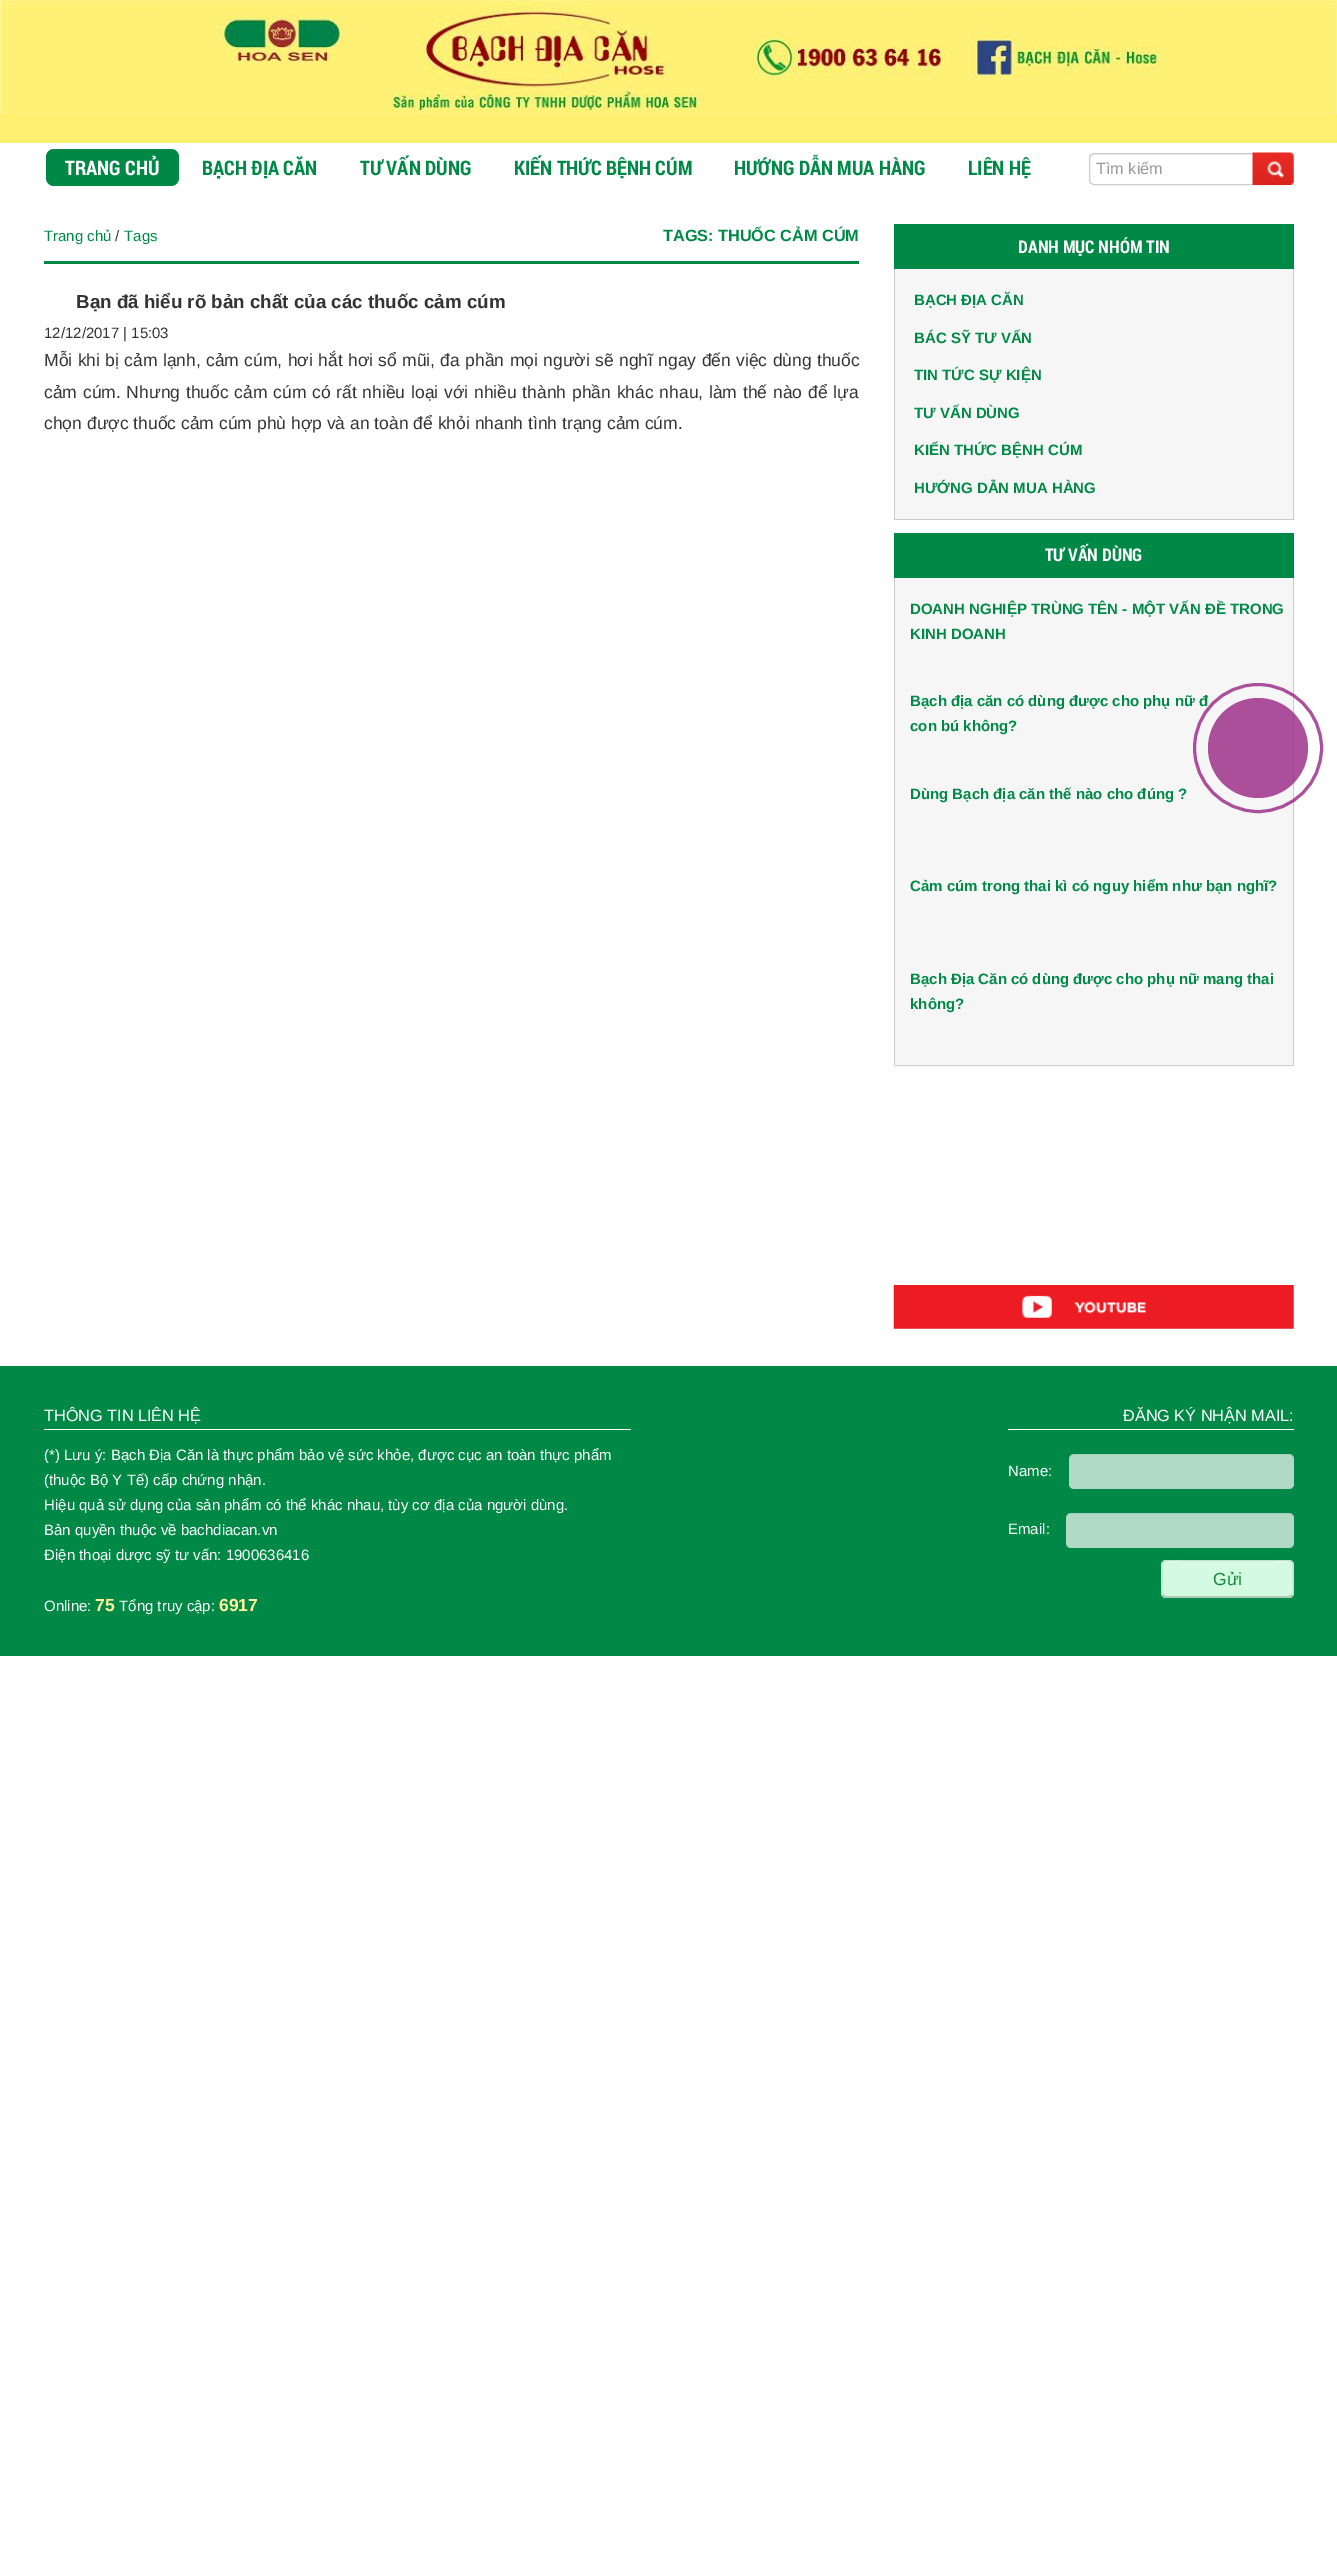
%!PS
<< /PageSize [1337 2558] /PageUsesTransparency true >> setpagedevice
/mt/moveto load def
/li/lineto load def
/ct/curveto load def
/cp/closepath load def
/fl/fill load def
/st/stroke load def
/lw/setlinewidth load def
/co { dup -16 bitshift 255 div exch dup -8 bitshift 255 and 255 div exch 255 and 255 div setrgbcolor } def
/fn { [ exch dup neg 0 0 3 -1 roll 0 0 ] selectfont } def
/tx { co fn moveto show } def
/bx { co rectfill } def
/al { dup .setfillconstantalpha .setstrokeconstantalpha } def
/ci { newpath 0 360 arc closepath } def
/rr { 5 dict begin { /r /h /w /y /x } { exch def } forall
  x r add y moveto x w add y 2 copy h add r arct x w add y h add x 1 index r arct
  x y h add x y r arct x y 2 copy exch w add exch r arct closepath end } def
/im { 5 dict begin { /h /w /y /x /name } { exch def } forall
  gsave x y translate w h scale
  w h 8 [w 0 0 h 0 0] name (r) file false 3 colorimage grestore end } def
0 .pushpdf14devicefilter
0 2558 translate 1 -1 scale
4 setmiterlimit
0 0 1337 2558 16#FFFFFF bx
0 113 1337 30 16#FFF06F bx
(media/1.raw) 0 0 1337 114 im
16#008946 co
46 149 133 37 8 rr fl
16#ECECEC co
1094 155 mt 1286 155 li 1288 155 1290 157 1290 159 ct 1290 158 li 1290 156 1288 154 1286 154 ct 1094 154 li 1092 154 1090 156 1090 158 ct 1090 159 li 1090 157 1092 155 1094 155 ct cp fl
16#CCCCCC co
1089.5 153.5 201 31 4.5 rr st
(media/2.raw) 1252 152 42 33 im
44 261 815 3 16#008946 bx
894 224 400 45 16#008946 bx
895 269 398 250 16#F6F6F6 bx
1293 269 1 251 16#CCCCCC bx
894 519 400 1 16#CCCCCC bx
894 269 1 251 16#CCCCCC bx
894 533 400 45 16#008946 bx
895 578 398 487 16#F6F6F6 bx
1293 578 1 488 16#CCCCCC bx
894 1065 400 1 16#CCCCCC bx
894 578 1 488 16#CCCCCC bx
(media/3.raw) 893 1285 401 44 im
0 1366 1337 290 16#008946 bx
44 1429 587 1 16#FFFFFF bx
1008 1429 286 1 16#FFFFFF bx
16#B0DAC6 co
1069 1454 225 35 5 rr fl
0.07 al
16#000000 co
1074 1455 mt 1289 1455 li 1292 1455 1294 1457 1294 1460 ct 1294 1459 li 1294 1456 1292 1454 1289 1454 ct 1074 1454 li 1071 1454 1069 1456 1069 1459 ct 1069 1460 li 1069 1457 1071 1455 1074 1455 ct cp fl
1 al
16#B0DAC6 co
1066 1513 228 35 5 rr fl
0.07 al
16#000000 co
1071 1514 mt 1289 1514 li 1292 1514 1294 1516 1294 1519 ct 1294 1518 li 1294 1515 1292 1513 1289 1513 ct 1071 1513 li 1068 1513 1066 1515 1066 1518 ct 1066 1519 li 1066 1516 1068 1514 1071 1514 ct cp fl
1 al
16#D5FAE2 co
1161 1560 133 38 5 rr fl
16#DDFBE8 co
1166 1562 mt 1289 1562 li 1294 1562 1292 1573 1292 1575 ct 1292 1595 li 1293 1594 1293 1593 1293 1592 ct 1293 1565 li 1293 1563 1291 1561 1289 1561 ct 1167 1561 li 1166 1561 1164 1562 1164 1563 ct cp fl
16#A0BCAA co
1.2 lw
1292 1595.5 mt 1289 1597 li 1186.5 1597 li 1166 1597 li 1163 1595.5 li st
0.1 al
16#000000 co
1163 1595.5 mt 1160.5 1593 1162 1586.5 1162 1583.5 ct 1162 1556 1157.5 1560.5 1186.5 1560.5 ct 1268.5 1560.5 li 1297.5 1560.5 1293 1556 1293 1583.5 ct 1293 1586.5 1294.5 1593 1292 1595.5 ct st
1 al
(TRANG CHỦ) 65 175 /RobotoCondensed-Bold 20 16#FFFFFF tx
(BẠCH ĐỊA CĂN) 202 175 /RobotoCondensed-Bold 20 16#008946 tx
(TƯ VẤN DÙNG) 360 175 /RobotoCondensed-Bold 20 16#008946 tx
(KIẾN THỨC BỆNH CÚM) 514 175 /RobotoCondensed-Bold 20 16#008946 tx
(HƯỚNG DẪN MUA HÀNG) 734 175 /RobotoCondensed-Bold 20 16#008946 tx
(LIÊN HỆ) 968 175 /RobotoCondensed-Bold 20 16#008946 tx
(Tìm kiếm) 1096 174 /LiberationSans-Regular 16.25 16#999999 tx
(Trang chủ) 44 241 /LiberationSans-Regular 15 16#008946 tx
(/) 115 241 /LiberationSans-Regular 15 16#333333 tx
(Tags) 124 241 /LiberationSans-Regular 15 16#008946 tx
(TAGS: THUỐC CẢM CÚM) 663 241 /LiberationSans-Bold 16.25 16#008946 tx
(Bạn đã hiểu rõ bản chất của các thuốc cảm cúm) 76 308 /LiberationSans-Bold 18.75 16#333333 tx
(12/12/2017 | 15:03) 44 338 /LiberationSans-Regular 15 16#333333 tx
/LiberationSans-Regular 17.5 fn
44 366 mt .5 0 32 (Mỗi khi bị cảm lạnh, cảm cúm, hơi hắt hơi sổ mũi, đa phần mọi người sẽ nghĩ ngay đến việc dùng thuốc) widthshow
44 398 mt .9 0 32 (cảm cúm. Nhưng thuốc cảm cúm có rất nhiều loại với nhiều thành phần khác nhau, làm thế nào để lựa) widthshow
(chọn được thuốc cảm cúm phù hợp và an toàn để khỏi nhanh tình trạng cảm cúm.) 44 429 /LiberationSans-Regular 17.5 16#333333 tx
(DANH MỤC NHÓM TIN) 1018 253 /RobotoCondensed-Bold 17.5 16#FFFFFF tx
(BẠCH ĐỊA CĂN) 914 305 /LiberationSans-Bold 15 16#008946 tx
(BÁC SỸ TƯ VẤN) 914 343 /LiberationSans-Bold 15 16#008946 tx
(TIN TỨC SỰ KIỆN) 914 380 /LiberationSans-Bold 15 16#008946 tx
(TƯ VẤN DÙNG) 914 418 /LiberationSans-Bold 15 16#008946 tx
(KIẾN THỨC BỆNH CÚM) 914 455 /LiberationSans-Bold 15 16#008946 tx
(HƯỚNG DẪN MUA HÀNG) 914 493 /LiberationSans-Bold 15 16#008946 tx
(TƯ VẤN DÙNG) 1045 561 /RobotoCondensed-Bold 17.5 16#FFFFFF tx
(DOANH NGHIỆP TRÙNG TÊN - MỘT VẤN ĐỀ TRONG) 910 614 /LiberationSans-Bold 15 16#008946 tx
(KINH DOANH) 910 639 /LiberationSans-Bold 15 16#008946 tx
(Bạch địa căn có dùng được cho phụ nữ đ) 910 706 /LiberationSans-Bold 15 16#008946 tx
(con bú không?) 910 731 /LiberationSans-Bold 15 16#008946 tx
(Dùng Bạch địa căn thế nào cho đúng ?) 910 799 /LiberationSans-Bold 15 16#008946 tx
(Cảm cúm trong thai kì có nguy hiểm như bạn nghĩ?) 910 891 /LiberationSans-Bold 15 16#008946 tx
(Bạch Địa Căn có dùng được cho phụ nữ mang thai) 910 984 /LiberationSans-Bold 15 16#008946 tx
(không?) 910 1009 /LiberationSans-Bold 15 16#008946 tx
0.8 al
16#982584 co
1258 748 50 ci fl
3 lw
1258 748 63.5 ci st
1 al
(THÔNG TIN LIÊN HỆ) 44 1421 /LiberationSans-Regular 16.25 16#FFFFFF tx
(\(*\) Lưu ý: Bạch Địa Căn là thực phẩm bảo vệ sức khỏe, được cục an toàn thực phẩm) 44 1460 /LiberationSans-Regular 15 16#FFFFFF tx
(\(thuộc Bộ Y Tế\) cấp chứng nhận.) 44 1485 /LiberationSans-Regular 15 16#FFFFFF tx
(Hiệu quả sử dụng của sản phẩm có thể khác nhau, tùy cơ địa của người dùng.) 44 1510 /LiberationSans-Regular 15 16#FFFFFF tx
(Bản quyền thuộc về bachdiacan.vn) 44 1535 /LiberationSans-Regular 15 16#FFFFFF tx
(Điện thoại dược sỹ tư vấn: 1900636416) 44 1560 /LiberationSans-Regular 15 16#FFFFFF tx
(Online:) 44 1611 /LiberationSans-Regular 15 16#FFFFFF tx
(75) 95 1611 /LiberationSans-Bold 17.5 16#FFF39E tx
(Tổng truy cập:) 119 1611 /LiberationSans-Regular 15 16#FFFFFF tx
(6917) 219 1611 /LiberationSans-Bold 17.5 16#FFF39E tx
(ĐĂNG KÝ NHẬN MAIL:) 1123 1421 /LiberationSans-Regular 16.25 16#FFFFFF tx
(Name:) 1008 1476 /LiberationSans-Regular 15 16#FFFFFF tx
(Email:) 1008 1534 /LiberationSans-Regular 15 16#FFFFFF tx
(Gửi) 1213 1585 /LiberationSans-Regular 17.5 16#158A40 tx
.poppdf14devicefilter showpage
